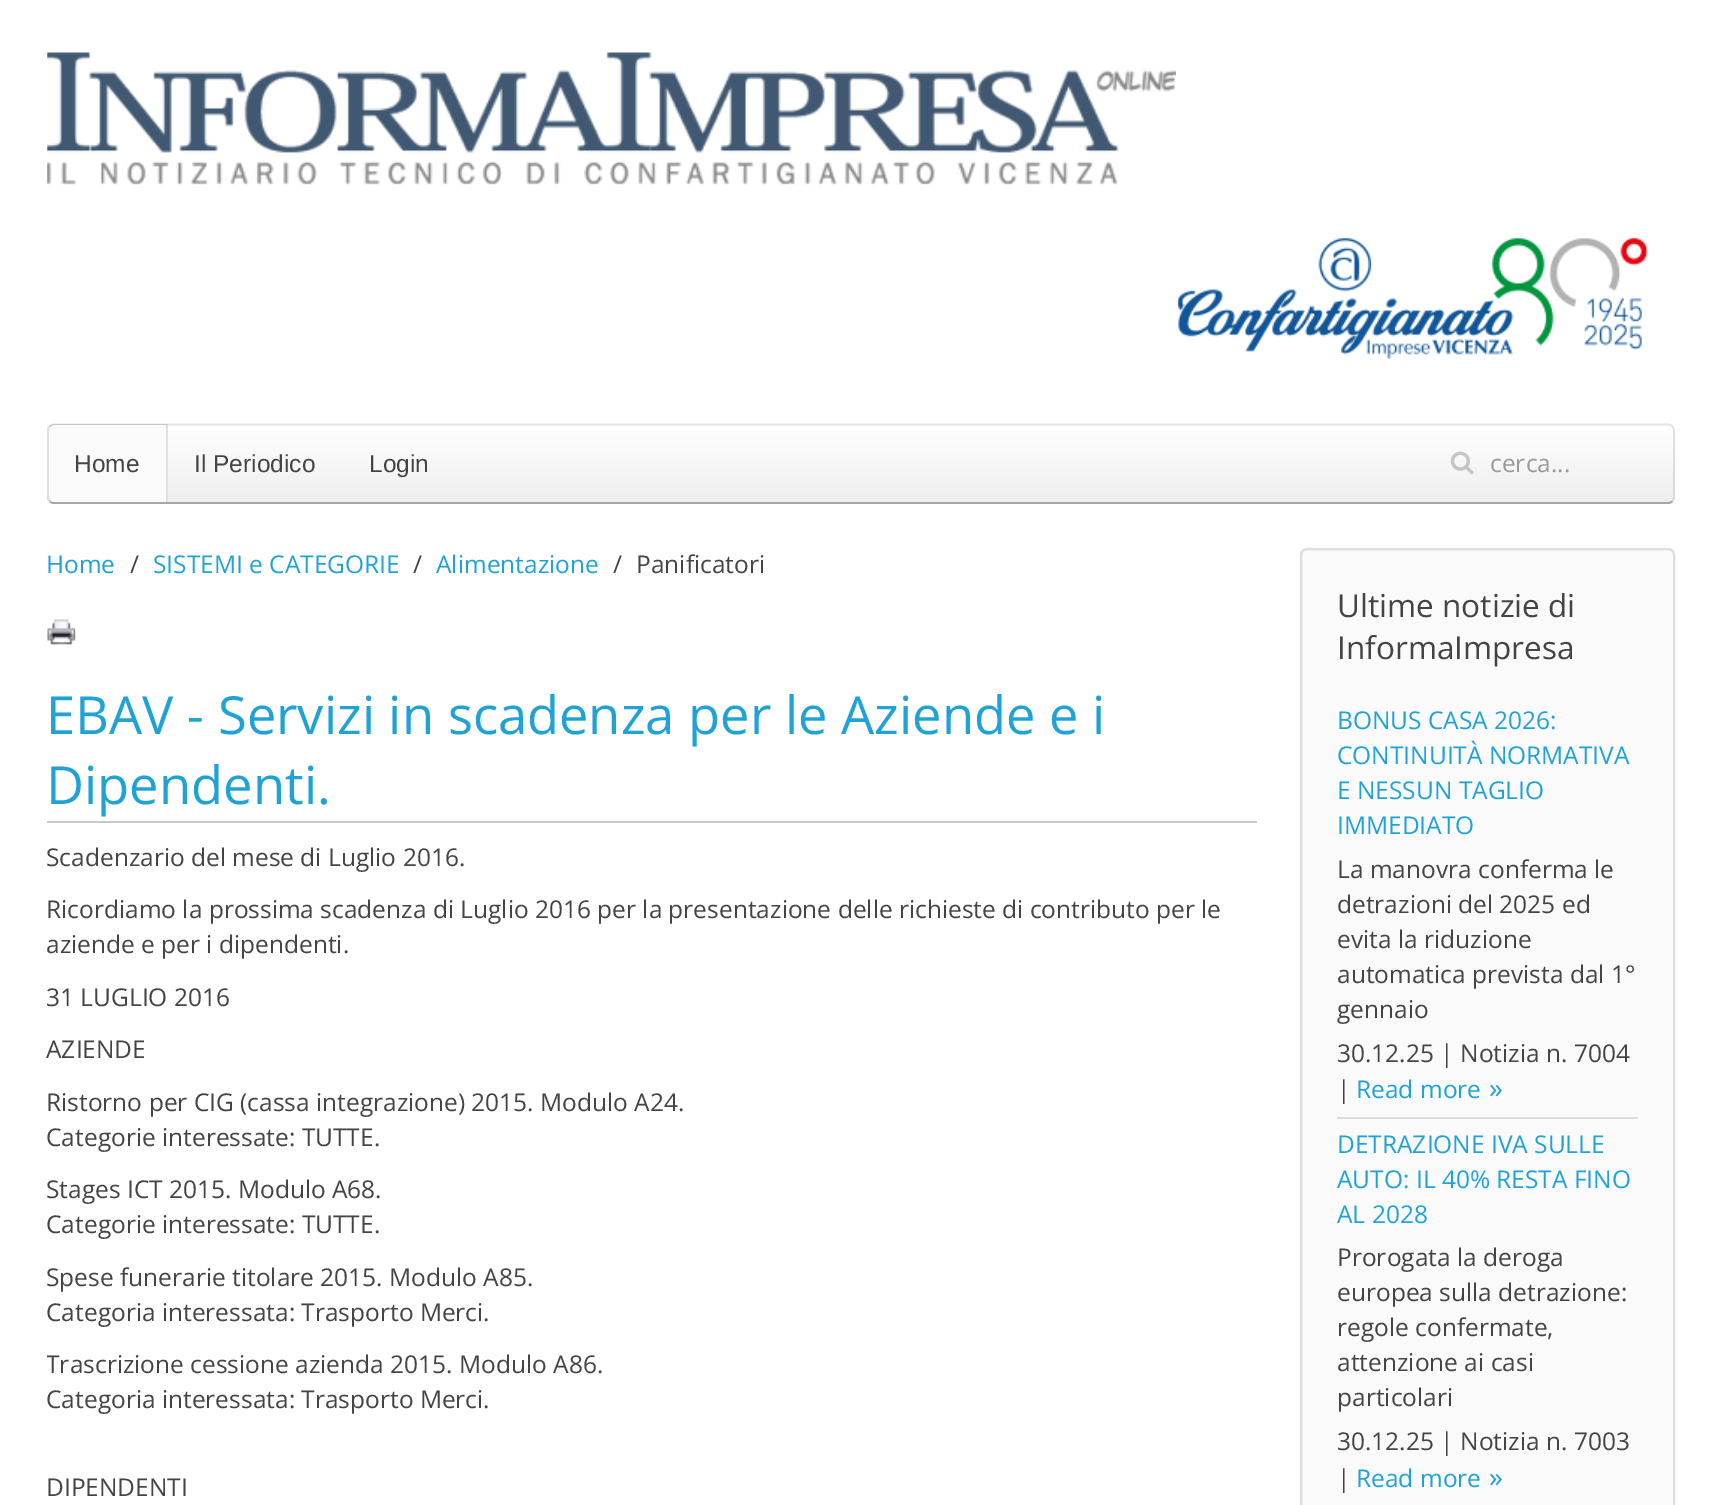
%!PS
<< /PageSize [1720 1505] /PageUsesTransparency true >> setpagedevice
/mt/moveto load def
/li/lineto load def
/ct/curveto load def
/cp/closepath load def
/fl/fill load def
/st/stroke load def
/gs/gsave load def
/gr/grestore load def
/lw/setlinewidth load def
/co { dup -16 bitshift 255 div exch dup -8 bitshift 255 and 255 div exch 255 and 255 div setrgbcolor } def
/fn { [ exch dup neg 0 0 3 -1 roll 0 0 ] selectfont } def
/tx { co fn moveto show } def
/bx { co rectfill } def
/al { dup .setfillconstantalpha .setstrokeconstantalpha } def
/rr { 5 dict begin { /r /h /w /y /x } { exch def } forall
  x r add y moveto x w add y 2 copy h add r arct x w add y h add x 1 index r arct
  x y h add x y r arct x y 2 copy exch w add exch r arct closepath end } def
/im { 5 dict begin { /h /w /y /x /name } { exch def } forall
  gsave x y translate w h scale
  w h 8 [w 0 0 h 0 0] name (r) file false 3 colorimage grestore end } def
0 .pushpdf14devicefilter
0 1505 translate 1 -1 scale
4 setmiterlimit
0 0 1720 1505 16#FFFFFF bx
(media/1.raw) 47 52 1129 133 im
(media/2.raw) 1176 238 472 121 im
gs 47 424 1628 80 7 rr clip newpath
<< /ShadingType 2 /ColorSpace /DeviceRGB /Coords [861 423 861 504] /Extend [true true] /Function << /FunctionType 2 /Domain [0 1] /C0 [1 1 1] /C1 [.933 .933 .933] /N 1 >> >> shfill gr
16#A7A7A7 co
1.8 lw
1672 501.5 mt 1671 502.5 1669.5 503 1668 503 ct 54 503 li 52.5 503 51 502.5 50 501.5 ct st
0.1 al
16#000000 co
50 501.5 mt 49 500 48 498.5 48 497 ct 48 430.5 li 48 429 49 427.5 50 426 ct 51 425 52.5 424.5 54 424.5 ct 1668 424.5 li 1669.5 424.5 1671 425 1672 426 ct 1673 427.5 1674 429 1674 430.5 ct 1674 497 li 1674 498.5 1673 500 1672 501.5 ct st
1 al
16#FAFAFA co
54 424 mt 168 424 li 168 502 li 54 502 li 50 502 47 499 47 495 ct 47 431 li 47 427 50 424 54 424 ct cp fl
0.2 al
16#000000 co
54 424 mt 168 424 li 166 426 li 166 425 li 53 425 li 50 427 li 49 426 li 51 425 52 424 54 424 ct cp fl
0.1 al
166 426 mt 168 424 li 168 502 li 166 502 li cp fl
49 426 mt 50 427 li 50 428 49 429 49 430 ct 49 495 li 49 499 51 502 54 502 ct 51 502 48 500 47 497 ct 47 428 li cp fl
1 al
(media/3.raw) 1450 451 24 24 im
(media/4.raw) 47 619 29 26 im
47 821 1210 2 16#C8C8C8 bx
16#FAFAFA co
1301 549 373 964 6 rr gs fl gr
16#DDDDDD co
2 lw
st
1337 1117 301 2 16#DDDDDD bx
(Home) 74 472 /LiberationSans-Regular 24.5 16#444444 tx
(Il Periodico) 194 472 /LiberationSans-Regular 24.5 16#444444 tx
(Login) 369 472 /LiberationSans-Regular 24.5 16#444444 tx
(cerca...) 1490 472 /OpenSans-Regular 24.5 16#999999 tx
(Home) 46 573 /OpenSans-Regular 24.5 16#1FA2D6 tx
(/) 130 573 /OpenSans-Regular 24.5 16#444444 tx
(SISTEMI e CATEGORIE) 153 573 /OpenSans-Regular 24.5 16#1FA2D6 tx
(/) 413 573 /OpenSans-Regular 24.5 16#444444 tx
(Alimentazione) 436 573 /OpenSans-Regular 24.5 16#1FA2D6 tx
(/) 613 573 /OpenSans-Regular 24.5 16#444444 tx
(Panificatori) 636 573 /OpenSans-Regular 24.5 16#444444 tx
(EBAV - Servizi in scadenza per le Aziende e i) 46 734 /OpenSans-Regular 52.5 16#1FA2D6 tx
(Dipendenti.) 46 804 /OpenSans-Regular 52.5 16#1FA2D6 tx
(Scadenzario del mese di Luglio 2016.) 46 866 /OpenSans-Regular 24.5 16#444444 tx
(Ricordiamo la prossima scadenza di Luglio 2016 per la presentazione delle richieste di contributo per le) 46 918 /OpenSans-Regular 24.5 16#444444 tx
(aziende e per i dipendenti.) 46 953 /OpenSans-Regular 24.5 16#444444 tx
(31 LUGLIO 2016) 46 1006 /OpenSans-Regular 24.5 16#444444 tx
(AZIENDE) 46 1058 /OpenSans-Regular 24.5 16#444444 tx
(Ristorno per CIG \(cassa integrazione\) 2015. Modulo A24.) 46 1111 /OpenSans-Regular 24.5 16#444444 tx
(Categorie interessate: TUTTE.) 46 1146 /OpenSans-Regular 24.5 16#444444 tx
(Stages ICT 2015. Modulo A68.) 46 1198 /OpenSans-Regular 24.5 16#444444 tx
(Categorie interessate: TUTTE.) 46 1233 /OpenSans-Regular 24.5 16#444444 tx
(Spese funerarie titolare 2015. Modulo A85.) 46 1286 /OpenSans-Regular 24.5 16#444444 tx
(Categoria interessata: Trasporto Merci.) 46 1321 /OpenSans-Regular 24.5 16#444444 tx
gs
47 1348 1210 70 rectclip
(Trascrizione cessione azienda 2015. Modulo A86.) 46 1373 /OpenSans-Regular 24.5 16#444444 tx
gr
(Categoria interessata: Trasporto Merci.) 46 1408 /OpenSans-Regular 24.5 16#444444 tx
(DIPENDENTI) 46 1496 /OpenSans-Regular 24.5 16#444444 tx
(Ultime notizie di) 1337 617 /OpenSans-Regular 31.5 16#444444 tx
(InformaImpresa) 1337 659 /OpenSans-Regular 31.5 16#444444 tx
(BONUS CASA 2026:) 1337 729 /OpenSans-Regular 24.5 16#1FA2D6 tx
(CONTINUITÀ NORMATIVA) 1337 764 /OpenSans-Regular 24.5 16#1FA2D6 tx
(E NESSUN TAGLIO) 1337 799 /OpenSans-Regular 24.5 16#1FA2D6 tx
(IMMEDIATO) 1337 834 /OpenSans-Regular 24.5 16#1FA2D6 tx
(La manovra conferma le) 1337 878 /OpenSans-Regular 24.5 16#444444 tx
(detrazioni del 2025 ed) 1337 913 /OpenSans-Regular 24.5 16#444444 tx
(evita la riduzione) 1337 948 /OpenSans-Regular 24.5 16#444444 tx
(automatica prevista dal 1°) 1337 983 /OpenSans-Regular 24.5 16#444444 tx
(gennaio) 1337 1018 /OpenSans-Regular 24.5 16#444444 tx
(30.12.25 | Notizia n. 7004) 1337 1062 /OpenSans-Regular 24.5 16#444444 tx
(|) 1337 1098 /OpenSans-Regular 24.5 16#444444 tx
(Read more) 1356 1098 /OpenSans-Regular 24.5 16#1FA2D6 tx
(») 1489 1098 /OpenSans-Regular 28 16#1FA2D6 tx
(DETRAZIONE IVA SULLE) 1337 1153 /OpenSans-Regular 24.5 16#1FA2D6 tx
(AUTO: IL 40% RESTA FINO) 1337 1188 /OpenSans-Regular 24.5 16#1FA2D6 tx
(AL 2028) 1337 1223 /OpenSans-Regular 24.5 16#1FA2D6 tx
(Prorogata la deroga) 1337 1266 /OpenSans-Regular 24.5 16#444444 tx
(europea sulla detrazione:) 1337 1301 /OpenSans-Regular 24.5 16#444444 tx
(regole confermate,) 1337 1336 /OpenSans-Regular 24.5 16#444444 tx
(attenzione ai casi) 1337 1371 /OpenSans-Regular 24.5 16#444444 tx
(particolari) 1337 1406 /OpenSans-Regular 24.5 16#444444 tx
(30.12.25 | Notizia n. 7003) 1337 1450 /OpenSans-Regular 24.5 16#444444 tx
(|) 1337 1487 /OpenSans-Regular 24.5 16#444444 tx
(Read more) 1356 1487 /OpenSans-Regular 24.5 16#1FA2D6 tx
(») 1489 1487 /OpenSans-Regular 28 16#1FA2D6 tx
.poppdf14devicefilter showpage
